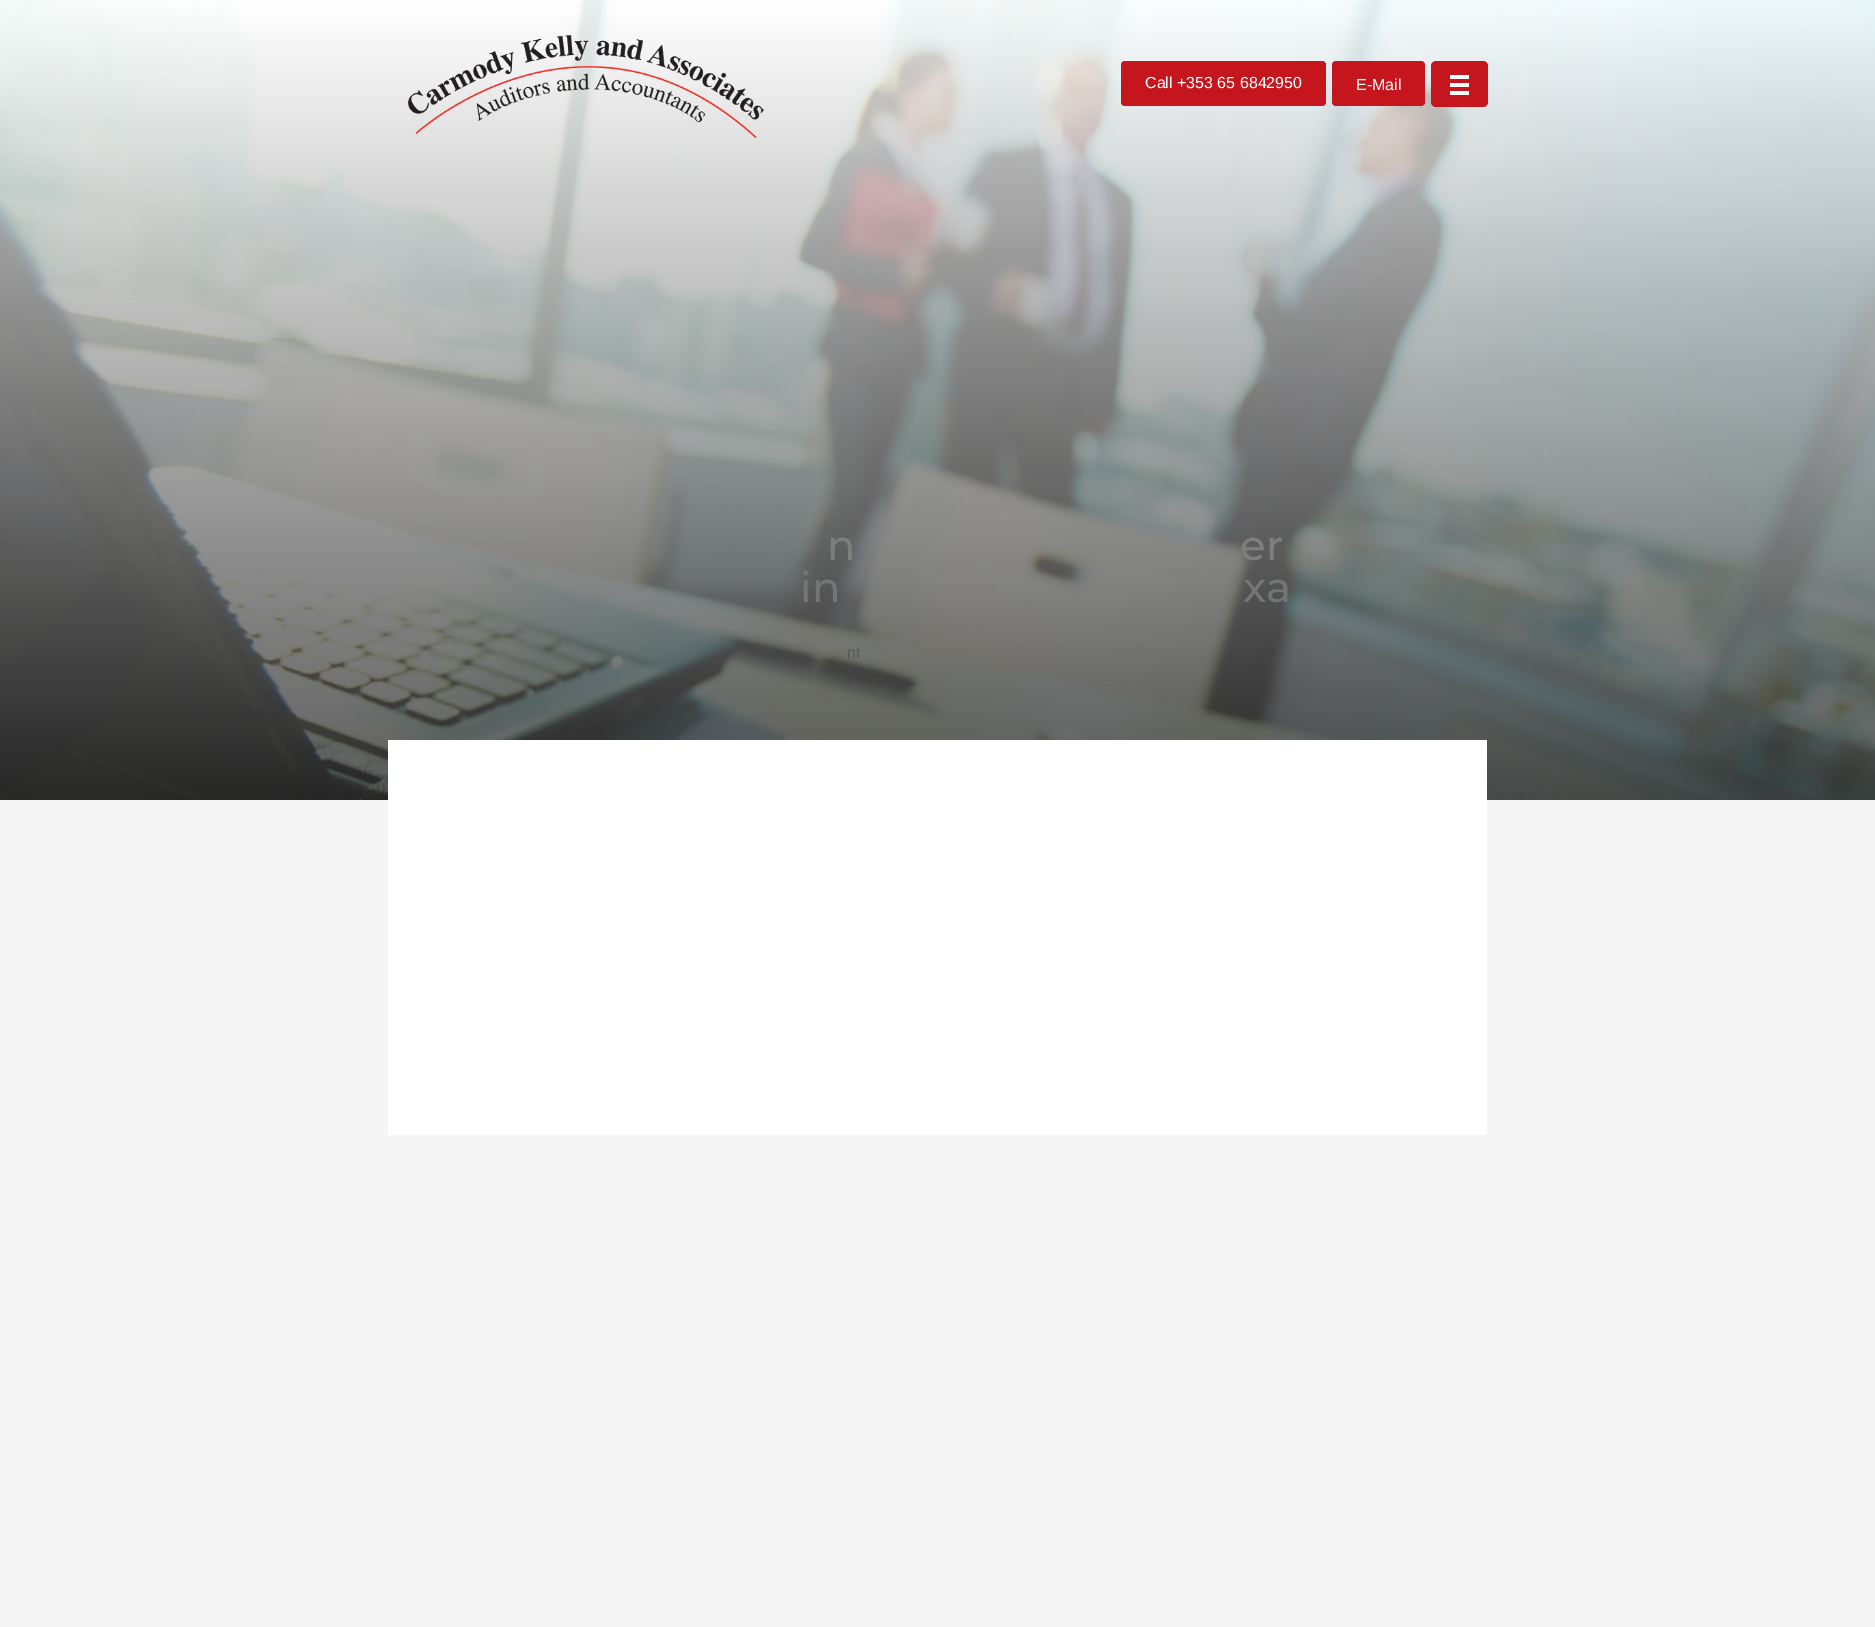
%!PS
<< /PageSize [1875 1627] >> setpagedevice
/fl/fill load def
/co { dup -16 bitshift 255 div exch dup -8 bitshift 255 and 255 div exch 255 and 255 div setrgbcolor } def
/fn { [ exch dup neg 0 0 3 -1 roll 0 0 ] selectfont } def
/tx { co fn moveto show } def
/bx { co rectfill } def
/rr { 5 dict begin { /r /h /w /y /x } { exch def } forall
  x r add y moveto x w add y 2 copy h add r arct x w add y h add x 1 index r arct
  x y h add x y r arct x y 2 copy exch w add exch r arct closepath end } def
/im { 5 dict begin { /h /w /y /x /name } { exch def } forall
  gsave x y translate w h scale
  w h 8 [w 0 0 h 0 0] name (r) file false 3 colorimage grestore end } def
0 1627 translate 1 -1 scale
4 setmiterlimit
0 0 1875 1627 16#FFFFFF bx
(media/2.raw) 0 0 1875 800 im
(media/1.raw) 408 35 356 103 im
16#C5161D co
1121 61 205 45 4 rr fl
1332 61 93 45 4 rr fl
1431 61 57 46 5 rr fl
1450 75 19 4 16#FFFFFF bx
1450 83 19 4 16#FFFFFF bx
1450 91 19 4 16#FFFFFF bx
0 800 1875 827 16#F5F5F5 bx
388 740 1099 395 16#FFFFFF bx
(Call +353 65 6842950) 1145 88 /LiberationSans-Regular 16 16#FFFFFF tx
(E-Mail) 1356 90 /LiberationSans-Regular 16 16#FFFFFF tx
(n) 827 560 /Montserrat-Thin 42 16#7D7F7E tx
(er) 1240 560 /Montserrat-Thin 42 16#7D7F7E tx
(in) 800 602 /Montserrat-Thin 42 16#737674 tx
(xa) 1243 602 /Montserrat-Thin 42 16#737674 tx
(nt) 847 658 /LiberationSans-Regular 16 16#575956 tx
showpage
